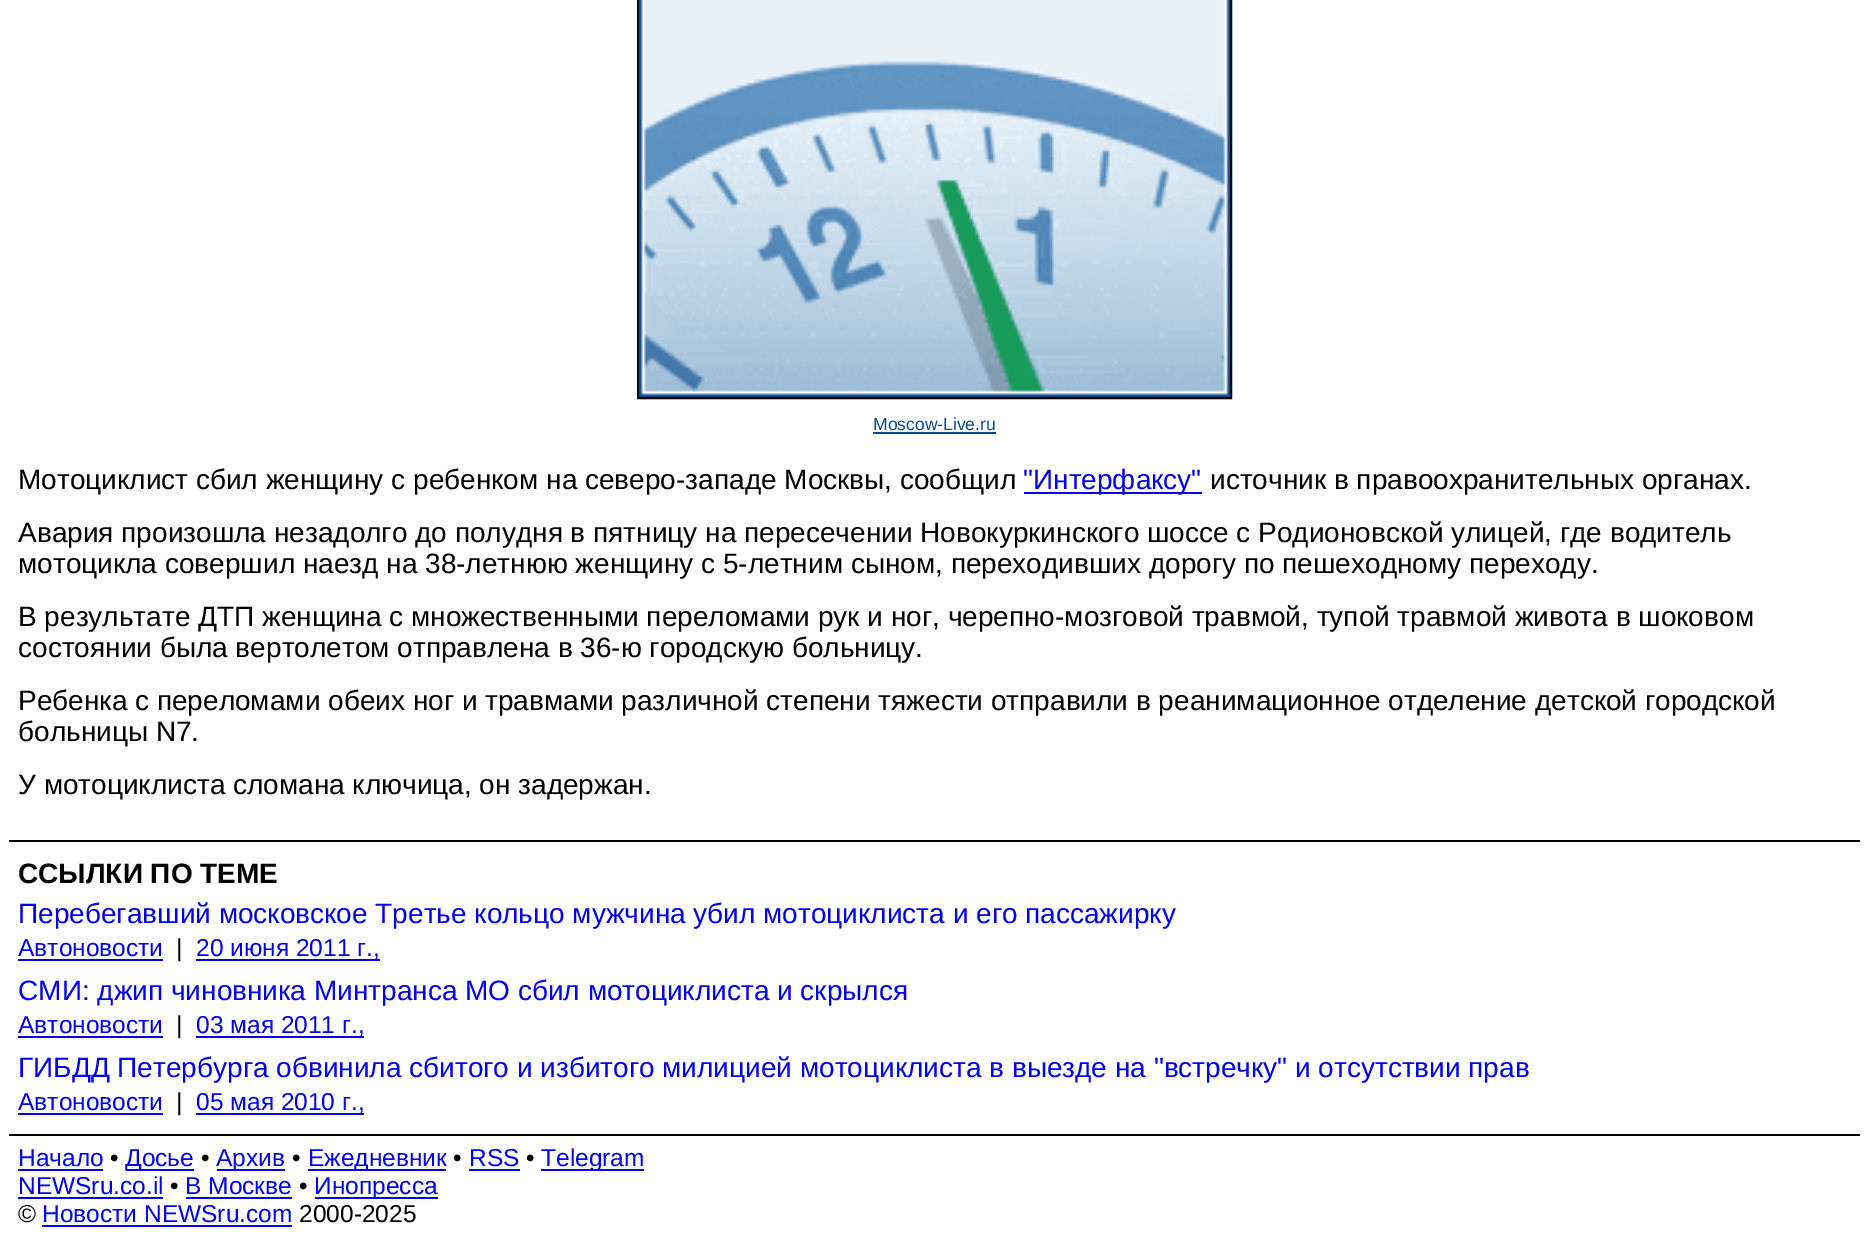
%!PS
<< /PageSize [1869 1254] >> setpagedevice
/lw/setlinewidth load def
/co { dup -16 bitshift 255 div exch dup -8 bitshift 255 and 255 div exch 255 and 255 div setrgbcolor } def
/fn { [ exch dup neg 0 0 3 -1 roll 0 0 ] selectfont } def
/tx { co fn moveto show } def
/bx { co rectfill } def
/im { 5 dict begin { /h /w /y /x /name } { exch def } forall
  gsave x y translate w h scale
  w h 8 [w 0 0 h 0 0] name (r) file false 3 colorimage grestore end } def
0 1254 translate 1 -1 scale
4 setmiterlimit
0 0 1869 1254 16#FFFFFF bx
9 840 1851 2 16#000000 bx
2 lw
638 -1 593 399 rectstroke
(media/1.raw) 638 0 593 397 im
873 432 123 2 16#09488F bx
1024 492 178 2 16#0000EE bx
18 959 145 2 16#0000EE bx
196 959 184 2 16#0000EE bx
18 1036 145 2 16#0000EE bx
196 1036 168 2 16#0000EE bx
18 1113 145 2 16#0000EE bx
196 1113 168 2 16#0000EE bx
9 1134 1851 2 16#000000 bx
18 1169 85 2 16#0000EE bx
126 1169 68 2 16#0000EE bx
217 1169 68 2 16#0000EE bx
308 1169 138 2 16#0000EE bx
469 1169 51 2 16#0000EE bx
541 1169 103 2 16#0000EE bx
18 1197 145 2 16#0000EE bx
186 1197 106 2 16#0000EE bx
315 1197 123 2 16#0000EE bx
42 1225 250 2 16#0000EE bx
(Moscow-Live.ru) 873 430 /LiberationSans-Regular 17.5 16#09488F tx
(Мотоциклист сбил женщину с ребенком на северо-западе Москвы, сообщил) 18 489 /LiberationSans-Regular 28 16#000000 tx
("Интерфаксу") 1023 489 /LiberationSans-Regular 28 16#0000EE tx
(источник в правоохранительных органах.) 1210 489 /LiberationSans-Regular 28 16#000000 tx
(Авария произошла незадолго до полудня в пятницу на пересечении Новокуркинского шоссе с Родионовской улицей, где водитель) 18 542 /LiberationSans-Regular 28 16#000000 tx
(мотоцикла совершил наезд на 38-летнюю женщину с 5-летним сыном, переходивших дорогу по пешеходному переходу.) 18 573 /LiberationSans-Regular 28 16#000000 tx
(В результате ДТП женщина с множественными переломами рук и ног, черепно-мозговой травмой, тупой травмой живота в шоковом) 18 626 /LiberationSans-Regular 28 16#000000 tx
(состоянии была вертолетом отправлена в 36-ю городскую больницу.) 18 657 /LiberationSans-Regular 28 16#000000 tx
(Ребенка с переломами обеих ног и травмами различной степени тяжести отправили в реанимационное отделение детской городской) 18 710 /LiberationSans-Regular 28 16#000000 tx
(больницы N7.) 18 741 /LiberationSans-Regular 28 16#000000 tx
(У мотоциклиста сломана ключица, он задержан.) 18 794 /LiberationSans-Regular 28 16#000000 tx
(ССЫЛКИ ПО ТЕМЕ) 18 883 /LiberationSans-Bold 28 16#000000 tx
(Перебегавший московское Третье кольцо мужчина убил мотоциклиста и его пассажирку) 18 923 /LiberationSans-Regular 28 16#0000EE tx
(Автоновости) 18 956 /LiberationSans-Regular 24.5 16#0000EE tx
(|) 176 956 /LiberationSans-Regular 24.5 16#000000 tx
(20 июня 2011 г.,) 196 956 /LiberationSans-Regular 24.5 16#0000EE tx
(СМИ: джип чиновника Минтранса МО сбил мотоциклиста и скрылся) 18 1000 /LiberationSans-Regular 28 16#0000EE tx
(Автоновости) 18 1033 /LiberationSans-Regular 24.5 16#0000EE tx
(|) 176 1033 /LiberationSans-Regular 24.5 16#000000 tx
(03 мая 2011 г.,) 196 1033 /LiberationSans-Regular 24.5 16#0000EE tx
(ГИБДД Петербурга обвинила сбитого и избитого милицией мотоциклиста в выезде на "встречку" и отсутствии прав) 18 1077 /LiberationSans-Regular 28 16#0000EE tx
(Автоновости) 18 1110 /LiberationSans-Regular 24.5 16#0000EE tx
(|) 176 1110 /LiberationSans-Regular 24.5 16#000000 tx
(05 мая 2010 г.,) 196 1110 /LiberationSans-Regular 24.5 16#0000EE tx
(Начало) 18 1166 /LiberationSans-Regular 24.5 16#0000EE tx
(•) 110 1166 /LiberationSans-Regular 24.5 16#000000 tx
(Досье) 125 1166 /LiberationSans-Regular 24.5 16#0000EE tx
(•) 201 1166 /LiberationSans-Regular 24.5 16#000000 tx
(Архив) 216 1166 /LiberationSans-Regular 24.5 16#0000EE tx
(•) 292 1166 /LiberationSans-Regular 24.5 16#000000 tx
(Ежедневник) 308 1166 /LiberationSans-Regular 24.5 16#0000EE tx
(•) 453 1166 /LiberationSans-Regular 24.5 16#000000 tx
(RSS) 469 1166 /LiberationSans-Regular 24.5 16#0000EE tx
(•) 526 1166 /LiberationSans-Regular 24.5 16#000000 tx
(Telegram) 541 1166 /LiberationSans-Regular 24.5 16#0000EE tx
(NEWSru.co.il) 18 1194 /LiberationSans-Regular 24.5 16#0000EE tx
(•) 170 1194 /LiberationSans-Regular 24.5 16#000000 tx
(В Москве) 185 1194 /LiberationSans-Regular 24.5 16#0000EE tx
(•) 299 1194 /LiberationSans-Regular 24.5 16#000000 tx
(Инопресса) 314 1194 /LiberationSans-Regular 24.5 16#0000EE tx
(©) 18 1222 /LiberationSans-Regular 24.5 16#000000 tx
(Новости NEWSru.com) 42 1222 /LiberationSans-Regular 24.5 16#0000EE tx
(2000-2025) 299 1222 /LiberationSans-Regular 24.5 16#000000 tx
showpage
